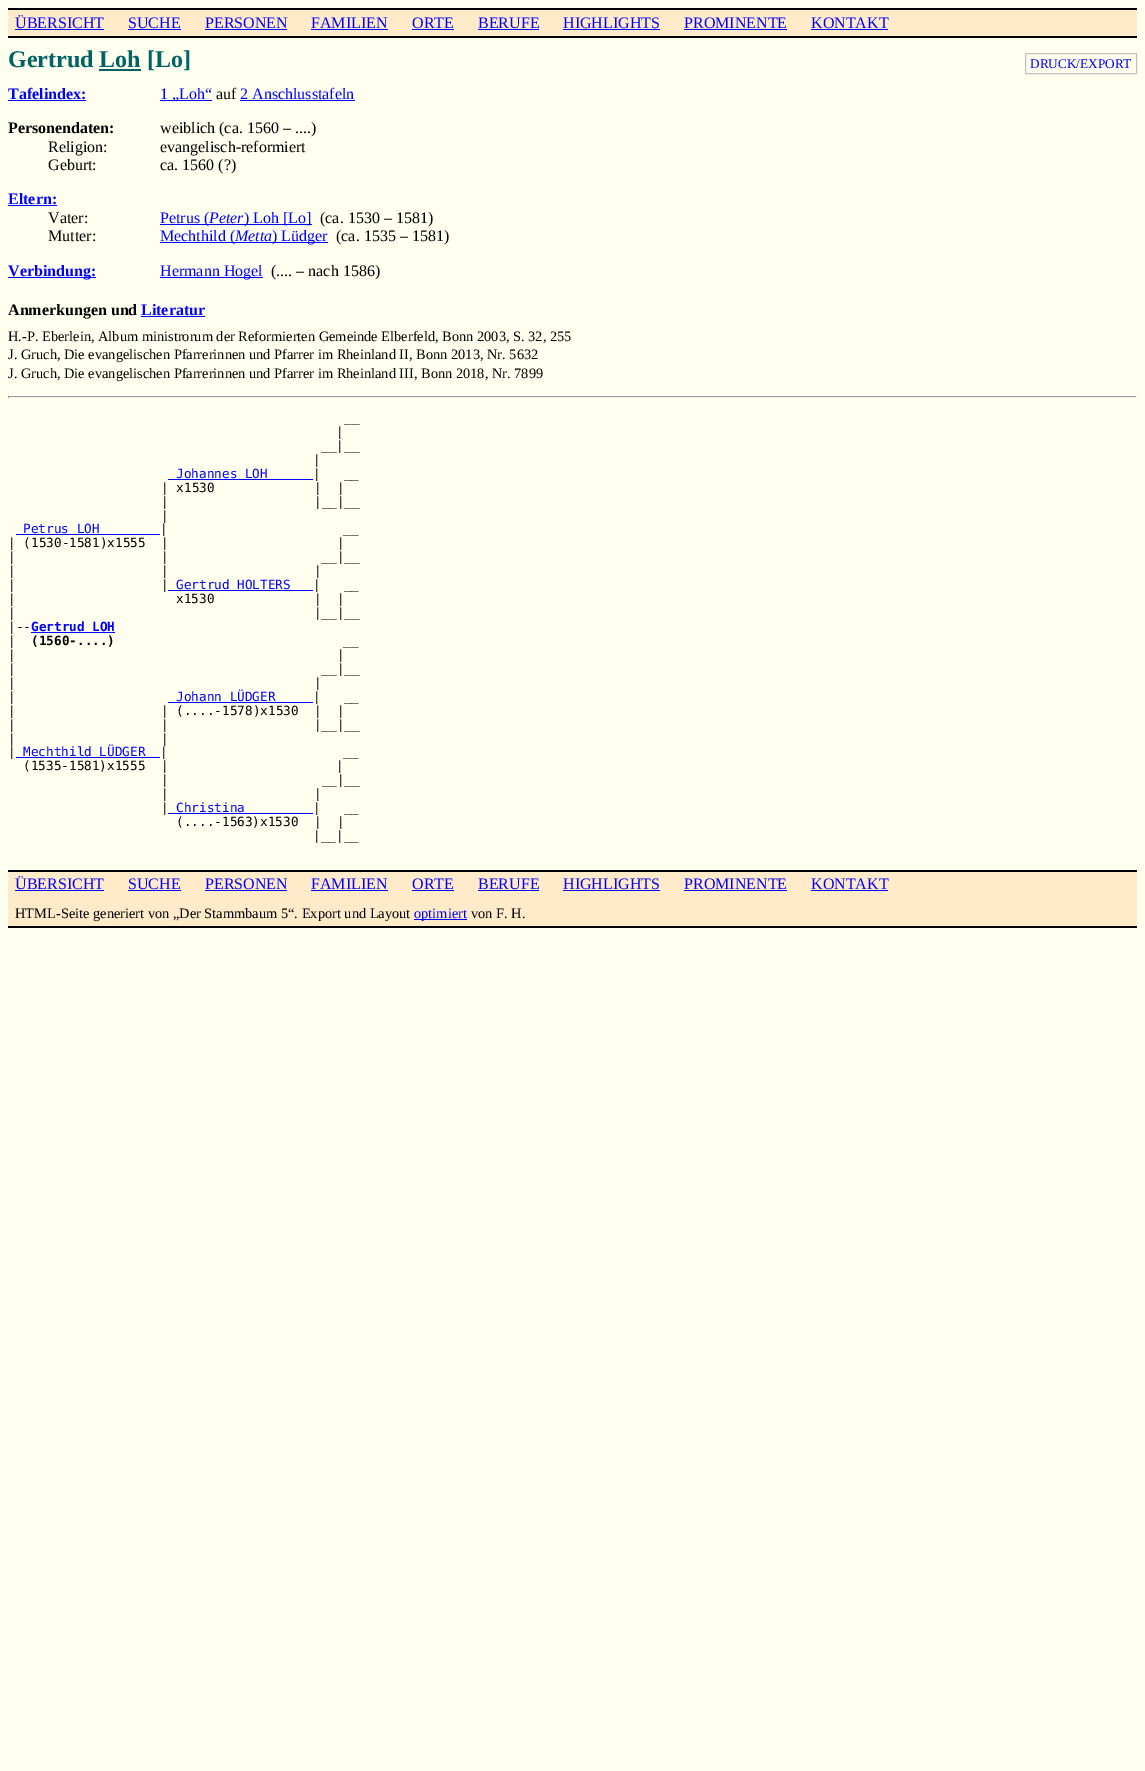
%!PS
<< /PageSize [1145 1771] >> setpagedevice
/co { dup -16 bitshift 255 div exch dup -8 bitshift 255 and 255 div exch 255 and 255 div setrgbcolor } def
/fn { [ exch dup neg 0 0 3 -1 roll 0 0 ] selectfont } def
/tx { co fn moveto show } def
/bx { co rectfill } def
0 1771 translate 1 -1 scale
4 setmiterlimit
0 0 1145 1771 16#FFFFF0 bx
8 10 1129 26 16#FFEACA bx
8 8 1129 2 16#000000 bx
8 36 1129 2 16#000000 bx
15 29 89 1 16#0000FF bx
128 29 53 1 16#0000FF bx
205 29 82 1 16#0000FF bx
311 29 77 1 16#0000FF bx
412 29 42 1 16#0000FF bx
478 29 61 1 16#0000FF bx
563 29 97 1 16#0000FF bx
684 29 103 1 16#0000FF bx
811 29 77 1 16#0000FF bx
99 69 42 2 16#006363 bx
16#C0C0C0 co
1025.5 53.5 111 20 rectstroke
8 100 78 1 16#0000FF bx
160 100 52 1 16#0000FF bx
240 100 115 1 16#0000FF bx
8 205 49 1 16#0000FF bx
160 224 152 1 16#0000FF bx
160 242 168 1 16#0000FF bx
8 277 88 1 16#0000FF bx
160 277 103 1 16#0000FF bx
141 316 64 1 16#0000FF bx
8 396 1129 1 16#9F9F9F bx
1136 396 1 2 16#EEEEEE bx
8 397 1129 1 16#EEEEEE bx
8 396 1 2 16#9F9F9F bx
168 479 145 1 16#0000FF bx
16 534 144 1 16#0000FF bx
168 590 145 1 16#0000FF bx
31 632 84 1 16#0000FF bx
168 702 145 1 16#0000FF bx
16 757 144 1 16#0000FF bx
168 813 145 1 16#0000FF bx
8 872 1129 54 16#FFEACA bx
8 870 1129 2 16#000000 bx
8 926 1129 2 16#000000 bx
15 890 89 1 16#0000FF bx
128 890 53 1 16#0000FF bx
205 890 82 1 16#0000FF bx
311 890 77 1 16#0000FF bx
412 890 42 1 16#0000FF bx
478 890 61 1 16#0000FF bx
563 890 97 1 16#0000FF bx
684 890 103 1 16#0000FF bx
811 890 77 1 16#0000FF bx
414 919 53 1 16#0000FF bx
(ÜBERSICHT) 15 28 /LiberationSerif-Regular 16 16#0000FF tx
(SUCHE) 128 28 /LiberationSerif-Regular 16 16#0000FF tx
(PERSONEN) 205 28 /LiberationSerif-Regular 16 16#0000FF tx
(FAMILIEN) 311 28 /LiberationSerif-Regular 16 16#0000FF tx
(ORTE) 412 28 /LiberationSerif-Regular 16 16#0000FF tx
(BERUFE) 478 28 /LiberationSerif-Regular 16 16#0000FF tx
(HIGHLIGHTS) 563 28 /LiberationSerif-Regular 16 16#0000FF tx
(PROMINENTE) 684 28 /LiberationSerif-Regular 16 16#0000FF tx
(KONTAKT) 811 28 /LiberationSerif-Regular 16 16#0000FF tx
(Gertrud Loh [Lo]) 8 67 /LiberationSerif-Bold 24 16#006363 tx
(DRUCK/EXPORT) 1030 68 /LiberationSerif-Regular 13.25 16#0000FF tx
(Tafelindex:) 8 99 /LiberationSerif-Bold 16 16#0000FF tx
(1 „Loh“) 160 99 /LiberationSerif-Regular 16 16#0000FF tx
(auf) 216 99 /LiberationSerif-Regular 16 16#000000 tx
(2 Anschlusstafeln) 240 99 /LiberationSerif-Regular 16 16#0000FF tx
(Personendaten:) 8 133 /LiberationSerif-Bold 16 16#000000 tx
(weiblich \(ca. 1560 – ....\)) 160 133 /LiberationSerif-Regular 16 16#000000 tx
(Religion:) 48 152 /LiberationSerif-Regular 16 16#000000 tx
(evangelisch-reformiert) 160 152 /LiberationSerif-Regular 16 16#000000 tx
(Geburt:) 48 170 /LiberationSerif-Regular 16 16#000000 tx
(ca. 1560 \(?\)) 160 170 /LiberationSerif-Regular 16 16#000000 tx
(Eltern:) 8 204 /LiberationSerif-Bold 16 16#0000FF tx
(Vater:) 48 223 /LiberationSerif-Regular 16 16#000000 tx
(Petrus \() 160 223 /LiberationSerif-Regular 16 16#0000FF tx
(Peter) 209 223 /LiberationSerif-Italic 16 16#0000FF tx
(\) Loh [Lo]) 244 223 /LiberationSerif-Regular 16 16#0000FF tx
(\(ca. 1530 – 1581\)) 320 223 /LiberationSerif-Regular 16 16#000000 tx
(Mutter:) 48 241 /LiberationSerif-Regular 16 16#000000 tx
(Mechthild \() 160 241 /LiberationSerif-Regular 16 16#0000FF tx
(Metta) 235 241 /LiberationSerif-Italic 16 16#0000FF tx
(\) Lüdger) 272 241 /LiberationSerif-Regular 16 16#0000FF tx
(\(ca. 1535 – 1581\)) 336 241 /LiberationSerif-Regular 16 16#000000 tx
(Verbindung:) 8 276 /LiberationSerif-Bold 16 16#0000FF tx
(Hermann Hogel) 160 276 /LiberationSerif-Regular 16 16#0000FF tx
(\(.... – nach 1586\)) 271 276 /LiberationSerif-Regular 16 16#000000 tx
(Anmerkungen und) 8 315 /LiberationSerif-Bold 16 16#000000 tx
(Literatur) 141 315 /LiberationSerif-Bold 16 16#0000FF tx
(H.-P. Eberlein, Album ministrorum der Reformierten Gemeinde Elberfeld, Bonn 2003, S. 32, 255) 8 341 /LiberationSerif-Regular 14.4 16#000000 tx
(J. Gruch, Die evangelischen Pfarrerinnen und Pfarrer im Rheinland II, Bonn 2013, Nr. 5632) 8 359 /LiberationSerif-Regular 14.4 16#000000 tx
(J. Gruch, Die evangelischen Pfarrerinnen und Pfarrer im Rheinland III, Bonn 2018, Nr. 7899) 8 378 /LiberationSerif-Regular 14.4 16#000000 tx
(__) 344 422 /DejaVuSansMono-Regular 12.7 16#000000 tx
(|) 336 436 /DejaVuSansMono-Regular 12.7 16#000000 tx
(__|__) 321 450 /DejaVuSansMono-Regular 12.7 16#000000 tx
(|) 313 464 /DejaVuSansMono-Regular 12.7 16#000000 tx
(Johannes LOH) 176 478 /DejaVuSansMono-Regular 12.7 16#0000FF tx
(|   __) 313 478 /DejaVuSansMono-Regular 12.7 16#000000 tx
(| x1530             |  |) 161 492 /DejaVuSansMono-Regular 12.7 16#000000 tx
(|                   |__|__) 161 506 /DejaVuSansMono-Regular 12.7 16#000000 tx
(|) 161 520 /DejaVuSansMono-Regular 12.7 16#000000 tx
(Petrus LOH) 23 533 /DejaVuSansMono-Regular 12.7 16#0000FF tx
(|                       __) 160 533 /DejaVuSansMono-Regular 12.7 16#000000 tx
(| \(1530-1581\)x1555  |                      |) 8 547 /DejaVuSansMono-Regular 12.7 16#000000 tx
(|                   |                    __|__) 8 561 /DejaVuSansMono-Regular 12.7 16#000000 tx
(|                   |                   |) 8 575 /DejaVuSansMono-Regular 12.7 16#000000 tx
(|                   |) 8 589 /DejaVuSansMono-Regular 12.7 16#000000 tx
(Gertrud HOLTERS) 176 589 /DejaVuSansMono-Regular 12.7 16#0000FF tx
(|   __) 313 589 /DejaVuSansMono-Regular 12.7 16#000000 tx
(|                     x1530             |  |) 8 603 /DejaVuSansMono-Regular 12.7 16#000000 tx
(|                                       |__|__) 8 617 /DejaVuSansMono-Regular 12.7 16#000000 tx
(|--) 8 631 /DejaVuSansMono-Regular 12.7 16#000000 tx
(Gertrud LOH) 31 631 /DejaVuSansMono-Bold 12.7 16#0000FF tx
(|) 8 645 /DejaVuSansMono-Regular 12.7 16#000000 tx
(\(1560-....\)) 31 645 /DejaVuSansMono-Bold 12.7 16#000000 tx
(__) 343 645 /DejaVuSansMono-Regular 12.7 16#000000 tx
(|                                          |) 8 659 /DejaVuSansMono-Regular 12.7 16#000000 tx
(|                                        __|__) 8 673 /DejaVuSansMono-Regular 12.7 16#000000 tx
(|                                       |) 8 687 /DejaVuSansMono-Regular 12.7 16#000000 tx
(|) 8 701 /DejaVuSansMono-Regular 12.7 16#000000 tx
(Johann LÜDGER) 176 701 /DejaVuSansMono-Regular 12.7 16#0000FF tx
(|   __) 313 701 /DejaVuSansMono-Regular 12.7 16#000000 tx
(|                   | \(....-1578\)x1530  |  |) 8 715 /DejaVuSansMono-Regular 12.7 16#000000 tx
(|                   |                   |__|__) 8 729 /DejaVuSansMono-Regular 12.7 16#000000 tx
(|                   |) 8 743 /DejaVuSansMono-Regular 12.7 16#000000 tx
(|) 8 756 /DejaVuSansMono-Regular 12.7 16#000000 tx
(Mechthild LÜDGER) 23 756 /DejaVuSansMono-Regular 12.7 16#0000FF tx
(|                       __) 160 756 /DejaVuSansMono-Regular 12.7 16#000000 tx
(\(1535-1581\)x1555  |                      |) 23 770 /DejaVuSansMono-Regular 12.7 16#000000 tx
(|                    __|__) 161 784 /DejaVuSansMono-Regular 12.7 16#000000 tx
(|                   |) 161 798 /DejaVuSansMono-Regular 12.7 16#000000 tx
(|) 161 812 /DejaVuSansMono-Regular 12.7 16#000000 tx
(Christina) 176 812 /DejaVuSansMono-Regular 12.7 16#0000FF tx
(|   __) 313 812 /DejaVuSansMono-Regular 12.7 16#000000 tx
(\(....-1563\)x1530  |  |) 176 826 /DejaVuSansMono-Regular 12.7 16#000000 tx
(|__|__) 313 840 /DejaVuSansMono-Regular 12.7 16#000000 tx
(ÜBERSICHT) 15 889 /LiberationSerif-Regular 16 16#0000FF tx
(SUCHE) 128 889 /LiberationSerif-Regular 16 16#0000FF tx
(PERSONEN) 205 889 /LiberationSerif-Regular 16 16#0000FF tx
(FAMILIEN) 311 889 /LiberationSerif-Regular 16 16#0000FF tx
(ORTE) 412 889 /LiberationSerif-Regular 16 16#0000FF tx
(BERUFE) 478 889 /LiberationSerif-Regular 16 16#0000FF tx
(HIGHLIGHTS) 563 889 /LiberationSerif-Regular 16 16#0000FF tx
(PROMINENTE) 684 889 /LiberationSerif-Regular 16 16#0000FF tx
(KONTAKT) 811 889 /LiberationSerif-Regular 16 16#0000FF tx
(HTML-Seite generiert von „Der Stammbaum 5“. Export und Layout) 15 918 /LiberationSerif-Regular 14.4 16#000000 tx
(optimiert) 414 918 /LiberationSerif-Regular 14.4 16#0000FF tx
(von F. H.) 471 918 /LiberationSerif-Regular 14.4 16#000000 tx
showpage
